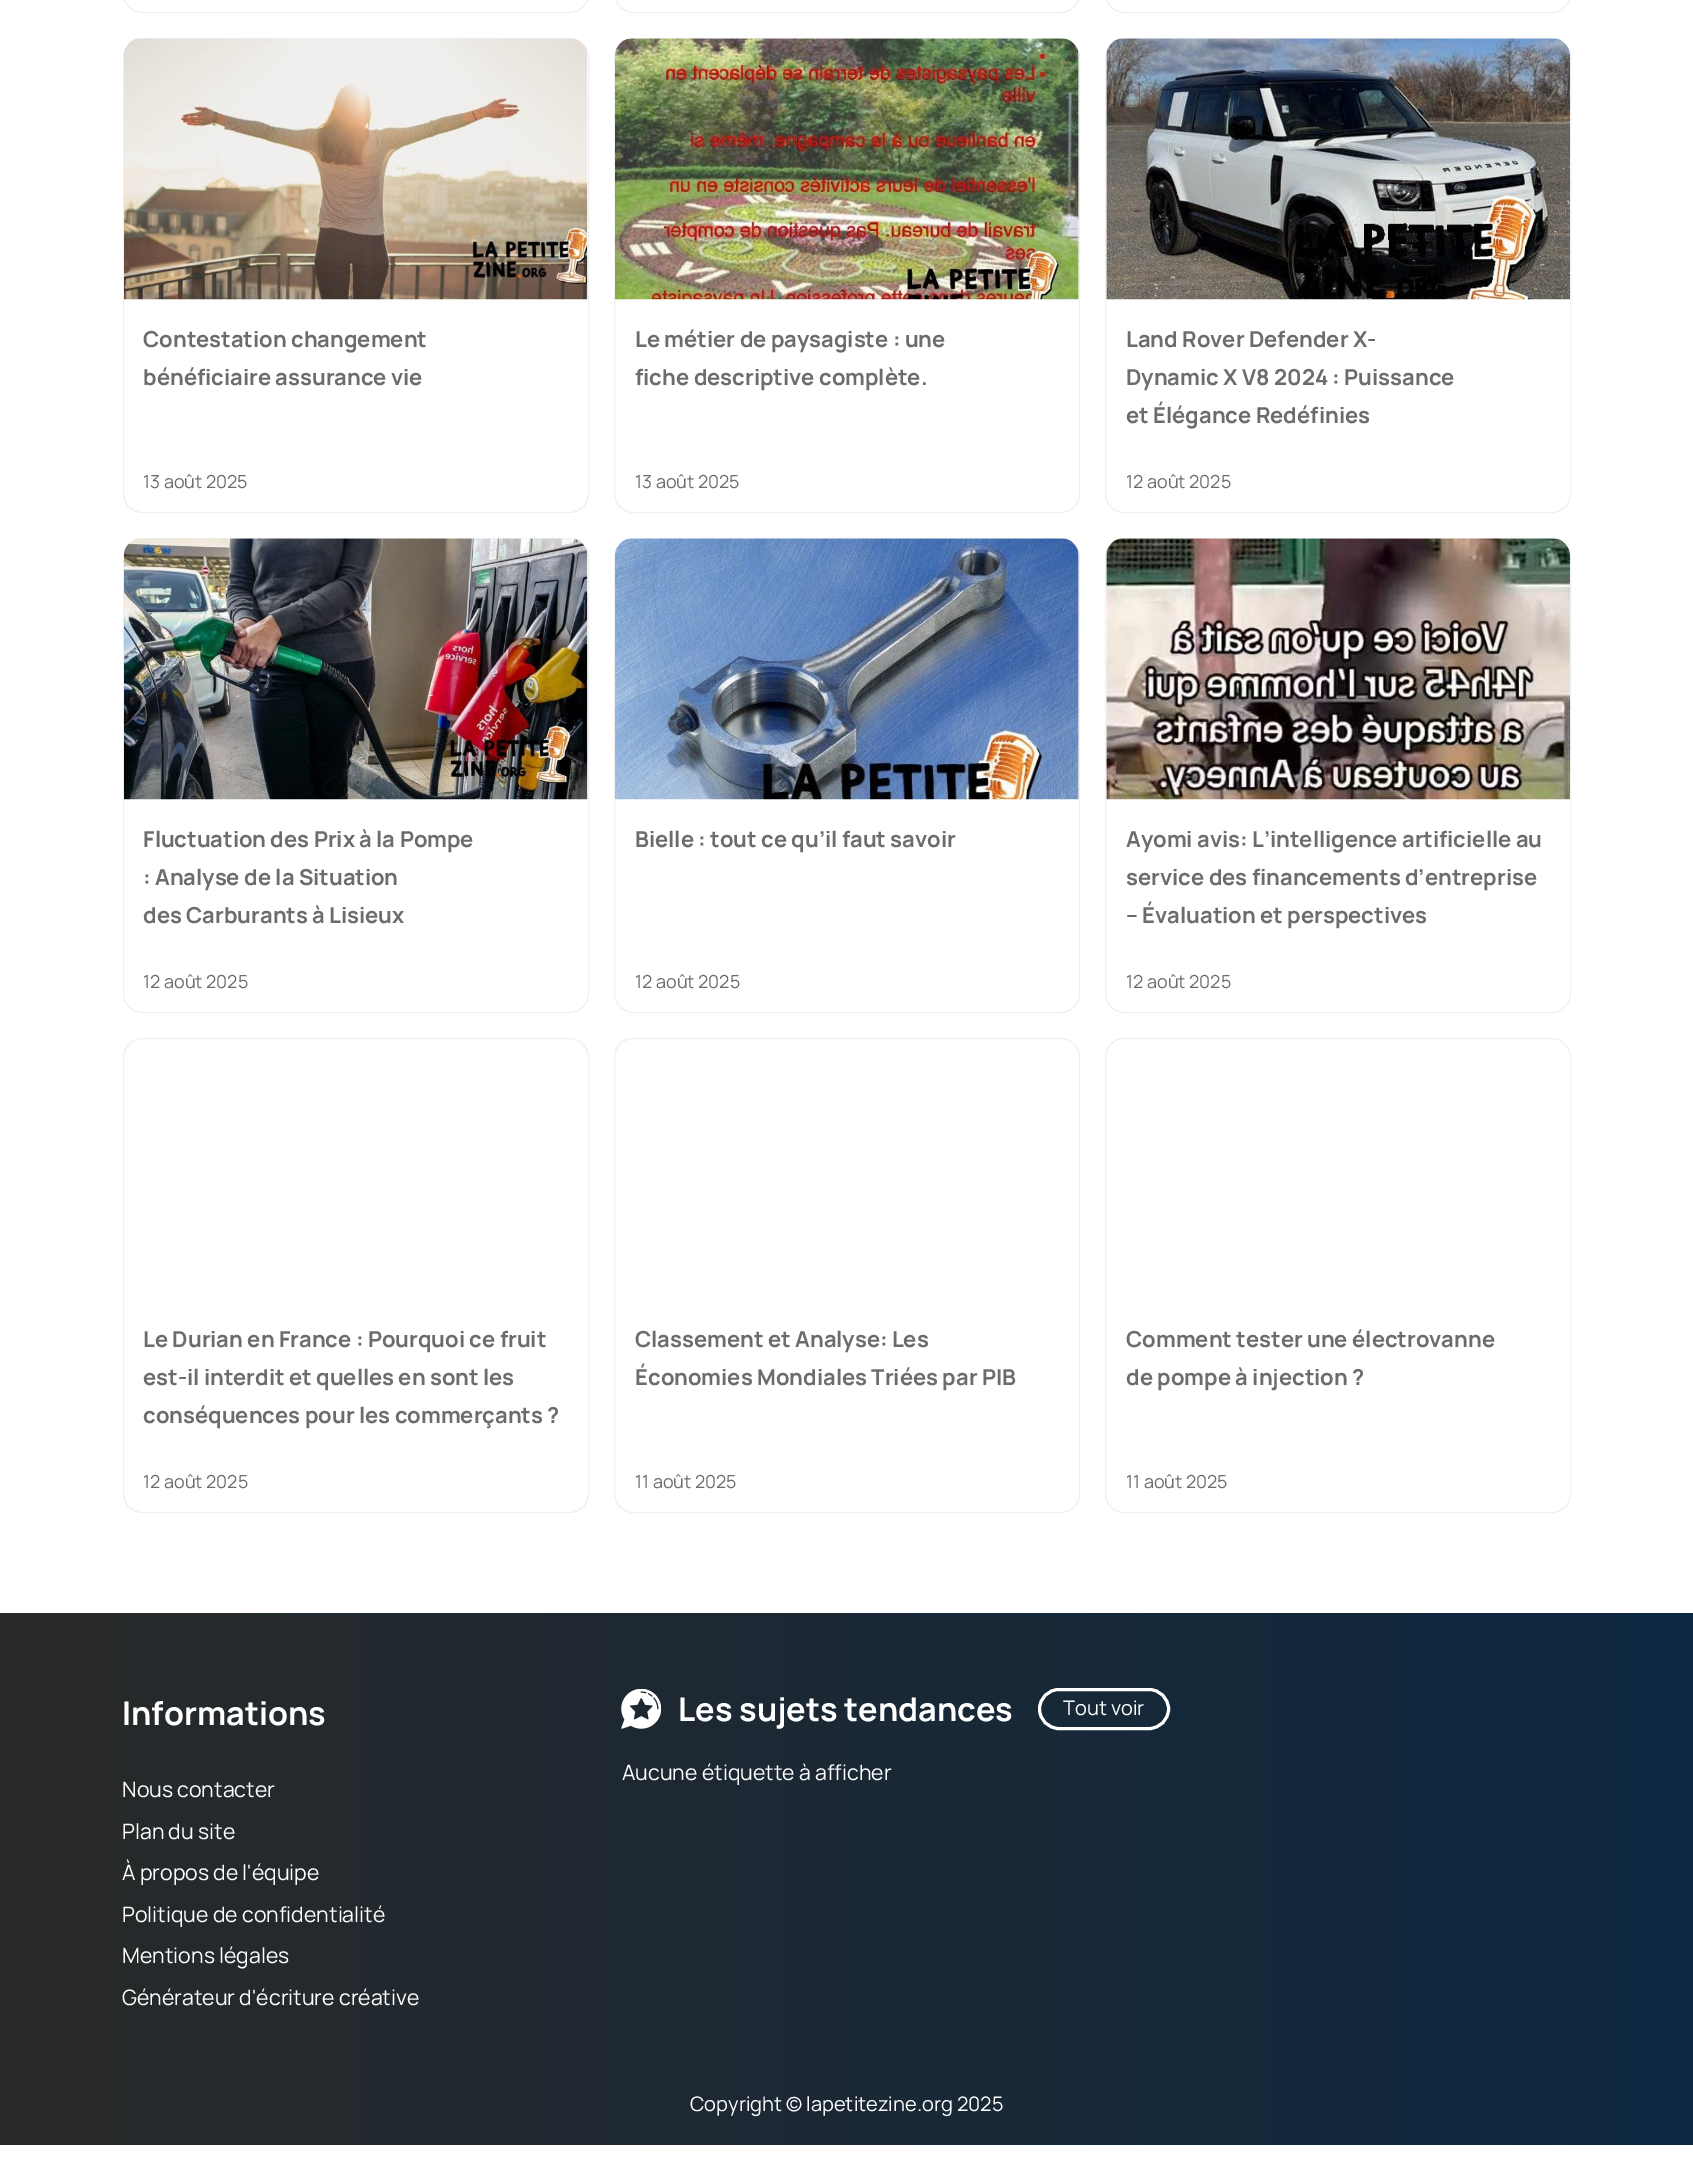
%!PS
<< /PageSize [1693 2177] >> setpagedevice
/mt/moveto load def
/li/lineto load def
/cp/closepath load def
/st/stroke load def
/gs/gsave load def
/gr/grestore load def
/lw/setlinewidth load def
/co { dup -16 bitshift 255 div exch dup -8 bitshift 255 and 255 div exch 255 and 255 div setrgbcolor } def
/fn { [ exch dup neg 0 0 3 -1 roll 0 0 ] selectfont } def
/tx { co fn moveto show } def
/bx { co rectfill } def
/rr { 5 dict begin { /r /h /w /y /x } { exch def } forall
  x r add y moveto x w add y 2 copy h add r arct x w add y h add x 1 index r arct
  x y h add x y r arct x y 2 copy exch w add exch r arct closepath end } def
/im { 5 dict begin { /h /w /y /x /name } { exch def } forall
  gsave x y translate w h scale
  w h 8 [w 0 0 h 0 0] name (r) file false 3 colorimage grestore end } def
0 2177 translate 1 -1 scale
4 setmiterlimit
0 0 1693 2177 16#FFFFFF bx
16#F0F0F0 co
123.5 -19.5 465 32 18.5 rr st
614.5 -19.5 465 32 18.5 rr st
1105.5 -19.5 465 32 18.5 rr st
123.5 38.5 465 474 18.5 rr st
(media/1.raw) 124 38 464 262 im
614.5 38.5 465 474 18.5 rr st
(media/2.raw) 615 38 464 262 im
1105.5 38.5 465 474 18.5 rr st
(media/3.raw) 1106 38 464 262 im
123.5 538.5 465 474 18.5 rr st
(media/4.raw) 124 538 464 262 im
614.5 538.5 465 474 18.5 rr st
(media/5.raw) 615 538 464 262 im
1105.5 538.5 465 474 18.5 rr st
(media/6.raw) 1106 538 464 262 im
123.5 1038.5 465 474 18.5 rr st
614.5 1038.5 465 474 18.5 rr st
1105.5 1038.5 465 474 18.5 rr st
gs 0 1613 mt 1693 1613 li 1693 2145 li 0 2145 li cp clip newpath
<< /ShadingType 2 /ColorSpace /DeviceRGB /Coords [0 1879 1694 1879] /Extend [true true] /Function << /FunctionType 2 /Domain [0 1] /C0 [.161 .161 .161] /C1 [.051 .153 .255] /N 1 >> >> shfill gr
(media/7.raw) 621 1689 40 40 im
16#FFFFFF co
3 lw
1039.5 1689.5 129 39 19.5 rr st
(Contestation changement) 143 347 /Manrope-Bold 22 16#6C6C6C tx
(bénéficiaire assurance vie) 143 385 /Manrope-Bold 22 16#6C6C6C tx
(13 août 2025) 143 488 /Manrope-Regular 18 16#6C6C6C tx
(Le métier de paysagiste : une) 635 347 /Manrope-Bold 22 16#6C6C6C tx
(fiche descriptive complète.) 635 385 /Manrope-Bold 22 16#6C6C6C tx
(13 août 2025) 635 488 /Manrope-Regular 18 16#6C6C6C tx
(Land Rover Defender X-) 1126 347 /Manrope-Bold 22 16#6C6C6C tx
(Dynamic X V8 2024 : Puissance) 1126 385 /Manrope-Bold 22 16#6C6C6C tx
(et Élégance Redéfinies) 1126 423 /Manrope-Bold 22 16#6C6C6C tx
(12 août 2025) 1126 488 /Manrope-Regular 18 16#6C6C6C tx
(Fluctuation des Prix à la Pompe) 143 847 /Manrope-Bold 22 16#6C6C6C tx
(: Analyse de la Situation) 143 885 /Manrope-Bold 22 16#6C6C6C tx
(des Carburants à Lisieux) 143 923 /Manrope-Bold 22 16#6C6C6C tx
(12 août 2025) 143 988 /Manrope-Regular 18 16#6C6C6C tx
(Bielle : tout ce qu’il faut savoir) 635 847 /Manrope-Bold 22 16#6C6C6C tx
(12 août 2025) 635 988 /Manrope-Regular 18 16#6C6C6C tx
(Ayomi avis: L’intelligence artificielle au) 1126 847 /Manrope-Bold 22 16#6C6C6C tx
(service des financements d’entreprise) 1126 885 /Manrope-Bold 22 16#6C6C6C tx
(– Évaluation et perspectives) 1126 923 /Manrope-Bold 22 16#6C6C6C tx
(12 août 2025) 1126 988 /Manrope-Regular 18 16#6C6C6C tx
(Le Durian en France : Pourquoi ce fruit) 143 1347 /Manrope-Bold 22 16#6C6C6C tx
(est-il interdit et quelles en sont les) 143 1385 /Manrope-Bold 22 16#6C6C6C tx
(conséquences pour les commerçants ?) 143 1423 /Manrope-Bold 22 16#6C6C6C tx
(12 août 2025) 143 1488 /Manrope-Regular 18 16#6C6C6C tx
(Classement et Analyse: Les) 635 1347 /Manrope-Bold 22 16#6C6C6C tx
(Économies Mondiales Triées par PIB) 635 1385 /Manrope-Bold 22 16#6C6C6C tx
(11 août 2025) 635 1488 /Manrope-Regular 18 16#6C6C6C tx
(Comment tester une électrovanne) 1126 1347 /Manrope-Bold 22 16#6C6C6C tx
(de pompe à injection ?) 1126 1385 /Manrope-Bold 22 16#6C6C6C tx
(11 août 2025) 1126 1488 /Manrope-Regular 18 16#6C6C6C tx
(Informations) 122 1725 /Manrope-Bold 32.5 16#FFFFFF tx
(Nous contacter) 122 1797 /Manrope-Regular 21.25 16#FFFFFF tx
(Plan du site) 122 1839 /Manrope-Regular 21.25 16#FFFFFF tx
(À propos de l'équipe) 122 1880 /Manrope-Regular 21.25 16#FFFFFF tx
(Politique de confidentialité) 122 1922 /Manrope-Regular 21.25 16#FFFFFF tx
(Mentions légales) 122 1963 /Manrope-Regular 21.25 16#FFFFFF tx
(Générateur d'écriture créative) 122 2005 /Manrope-Regular 21.25 16#FFFFFF tx
(Les sujets tendances) 678 1721 /Manrope-Bold 32.5 16#FFFFFF tx
(Tout voir) 1063 1715 /Manrope-Regular 20 16#FFFFFF tx
(Aucune étiquette à afficher) 622 1780 /Manrope-Regular 21.25 16#FFFFFF tx
(Copyright © lapetitezine.org 2025) 690 2111 /Manrope-Regular 20 16#FFFFFF tx
showpage
